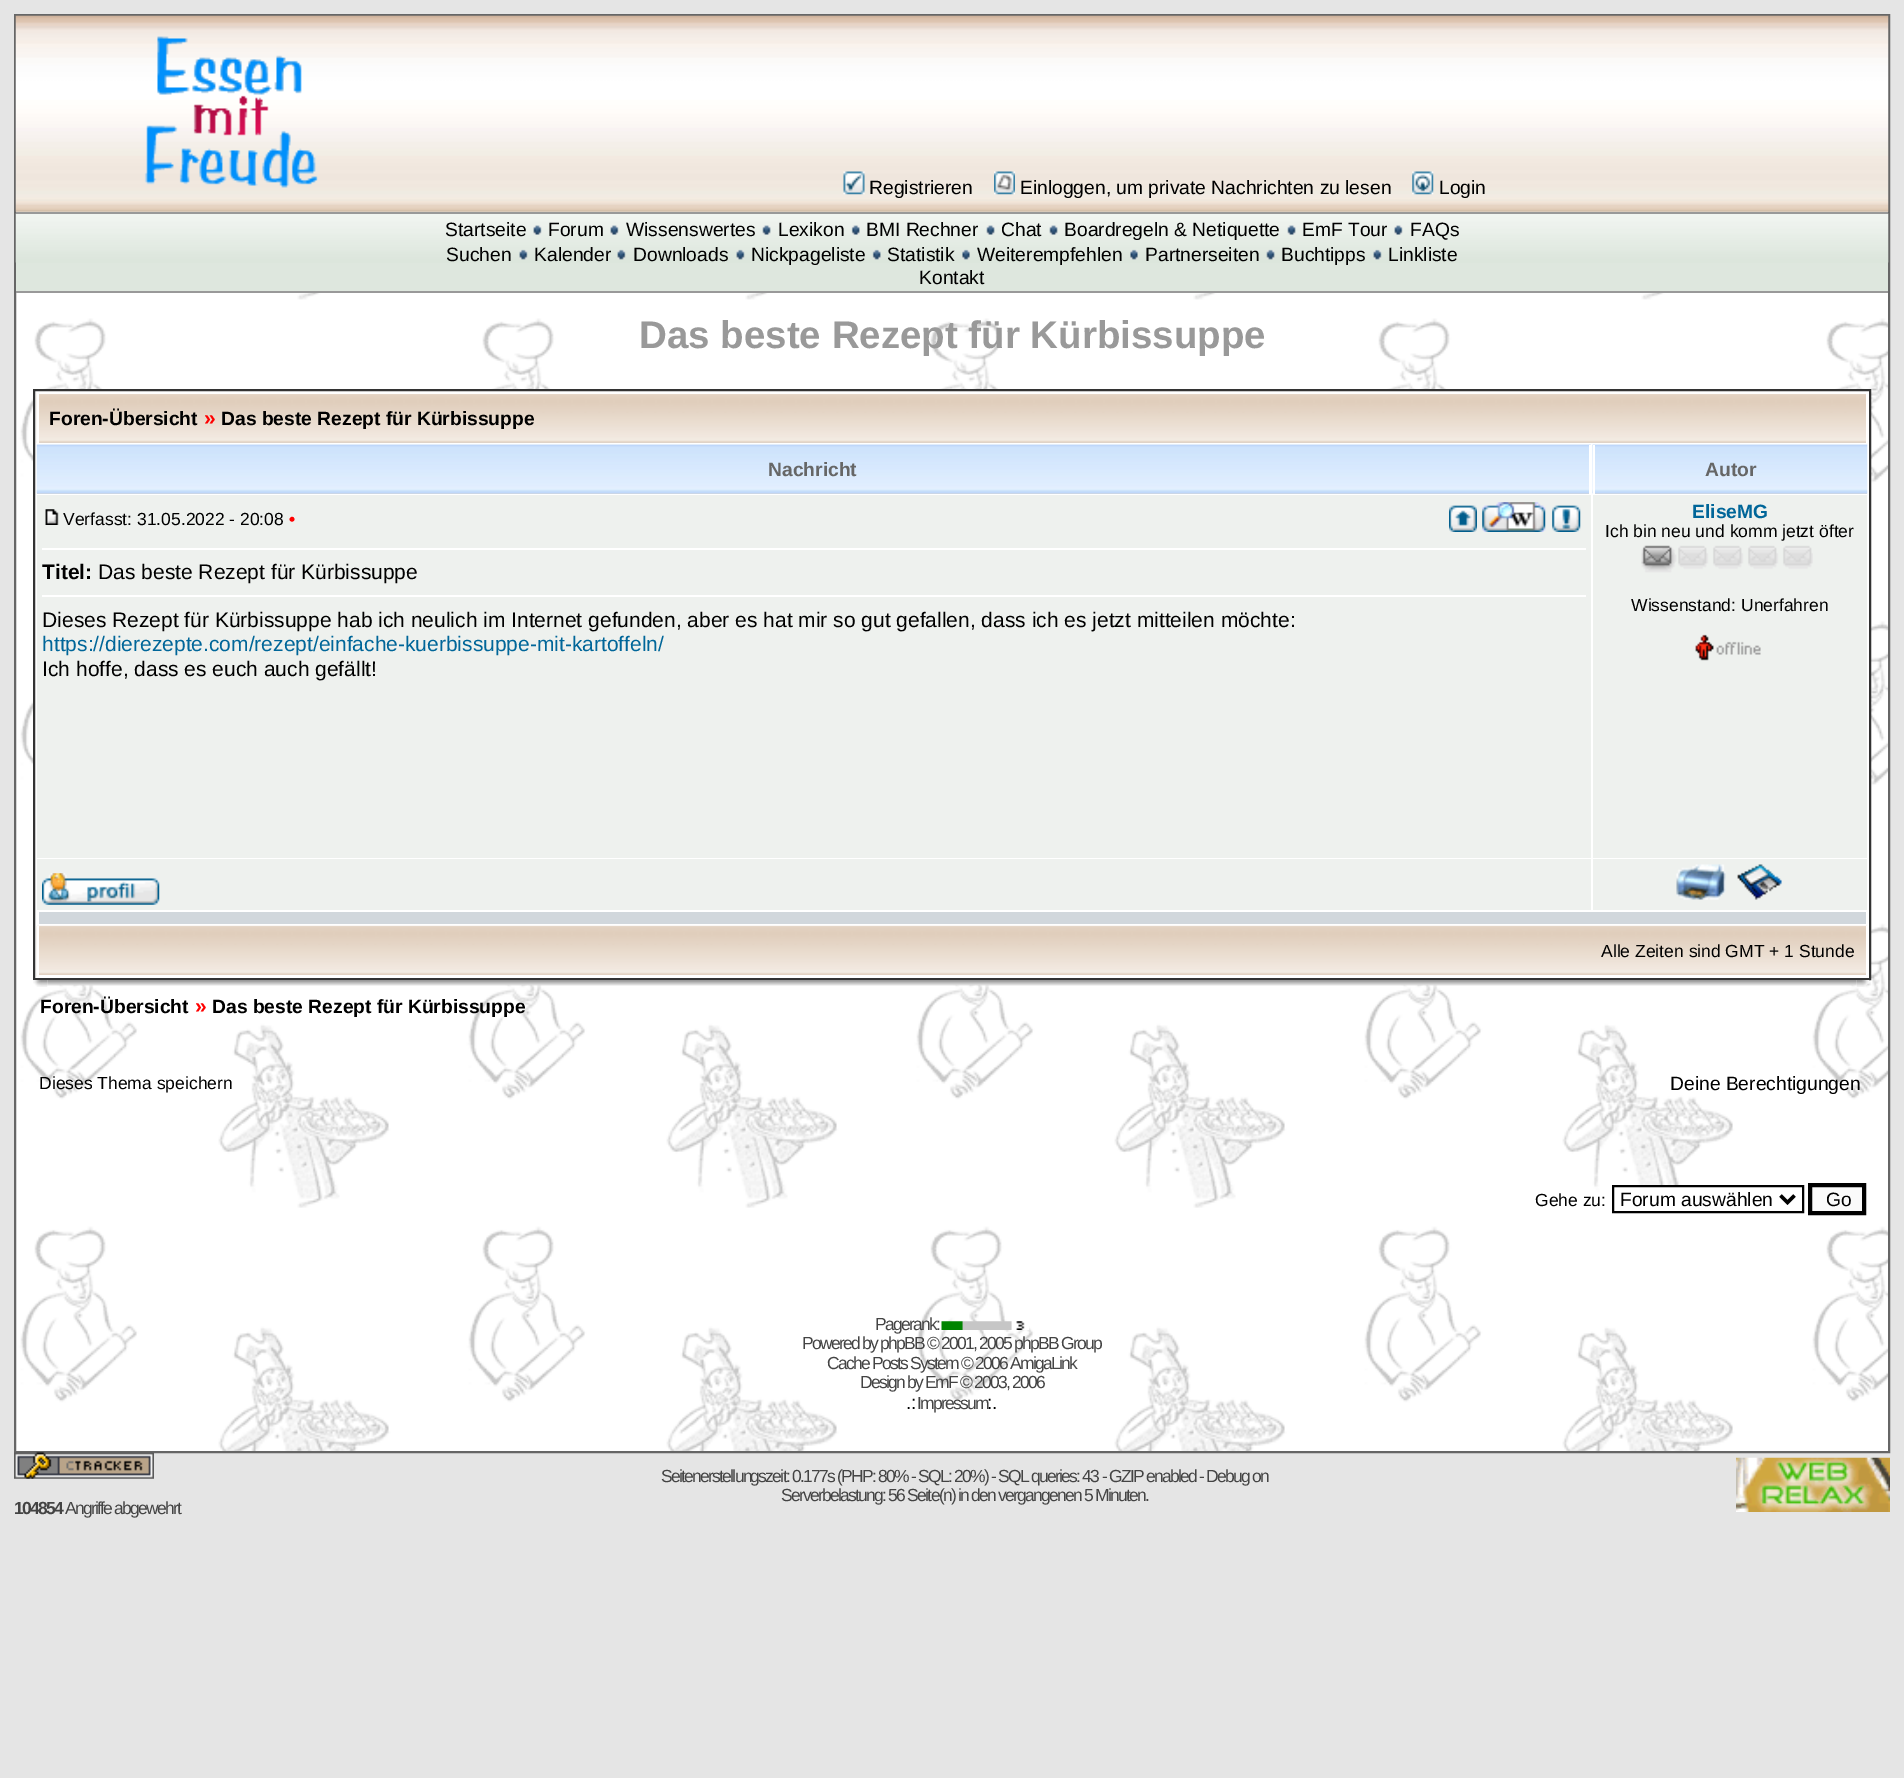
%!PS
<< /PageSize [1904 1778] >> setpagedevice
/mt/moveto load def
/li/lineto load def
/cp/closepath load def
/fl/fill load def
/st/stroke load def
/gs/gsave load def
/gr/grestore load def
/lw/setlinewidth load def
/co { dup -16 bitshift 255 div exch dup -8 bitshift 255 and 255 div exch 255 and 255 div setrgbcolor } def
/fn { [ exch dup neg 0 0 3 -1 roll 0 0 ] selectfont } def
/tx { co fn moveto show } def
/bx { co rectfill } def
/im { 5 dict begin { /h /w /y /x /name } { exch def } forall
  gsave x y translate w h scale
  w h 8 [w 0 0 h 0 0] name (r) file false 3 colorimage grestore end } def
0 1778 translate 1 -1 scale
4 setmiterlimit
0 0 1904 1778 16#E5E5E5 bx
(media/1.raw) 16 211 1872 1240 im
16#666666 co
2 lw
15 15 1874 1437 rectstroke
(media/2.raw) 15 15 1874 197 im
(media/3.raw) 144 36 174 152 im
(media/4.raw) 843 171 22 24 im
(media/5.raw) 994 171 21 24 im
(media/6.raw) 1412 171 22 24 im
16 262 1872 29 16#DEE7DE bx
(media/7.raw) 15 213 1874 50 im
16 212 1872 2 16#999999 bx
16 291 1872 2 16#999999 bx
(media/8.raw) 533 225 9 10 im
(media/9.raw) 610 225 9 10 im
(media/10.raw) 762 225 9 10 im
(media/11.raw) 851 225 9 10 im
(media/10.raw) 986 225 9 10 im
(media/10.raw) 1049 225 9 10 im
(media/12.raw) 1287 225 9 10 im
(media/8.raw) 1394 225 9 10 im
(media/13.raw) 519 249 9 11 im
(media/13.raw) 617 249 9 11 im
(media/14.raw) 736 249 9 11 im
(media/15.raw) 872 249 9 11 im
(media/16.raw) 962 249 8 11 im
(media/16.raw) 1130 249 8 11 im
(media/17.raw) 1266 249 9 11 im
(media/14.raw) 1373 249 9 11 im
16#FFFFFF co
34 390 mt 1870 390 li 1870 979 li 34 979 li cp gs fl gr
16#333333 co
st
(media/18.raw) 36 392 1830 51 im
37 392 1830 2 16#FFFFFF bx
37 392 2 51 16#FFFFFF bx
37 493 1552 1 16#D0D0D0 bx
(media/19.raw) 36 444 1555 50 im
1589 445 2 49 16#FFFFFF bx
1595 493 272 1 16#D0D0D0 bx
(media/20.raw) 1592 444 276 50 im
1593 445 2 49 16#FFFFFF bx
37 495 1554 363 16#EEF1EE bx
(media/21.raw) 45 509 14 16 im
(media/22.raw) 1449 505 28 27 im
(media/23.raw) 1482 502 64 30 im
(media/24.raw) 1552 505 29 27 im
42 548 1544 2 16#FFFFFF bx
42 595 1544 2 16#FFFFFF bx
1593 495 274 363 16#EEF1EE bx
(media/25.raw) 1641 545 172 28 im
(media/26.raw) 1695 634 66 27 im
37 859 1554 51 16#EEF1EE bx
(media/27.raw) 42 873 118 32 im
1593 859 274 51 16#EEF1EE bx
(media/28.raw) 1676 864 50 36 im
(media/29.raw) 1737 864 45 36 im
39 912 1827 12 16#D1D7DC bx
(media/30.raw) 36 925 1832 52 im
1866 926 2 51 16#FFFFFF bx
37 975 1830 2 16#FFFFFF bx
37 926 2 51 16#FFFFFF bx
(media/31.raw) 33 980 15 7 im
(media/32.raw) 47 980 1810 6 im
(media/33.raw) 1856 980 13 7 im
1640 1187 44 21 16#FFFFFF bx
16#000000 co
1613 1186 190 26 rectstroke
3.5 lw
1780.5 1195.5 mt 1787.5 1202.5 li 1794.5 1195.5 li st
16#FAFAFA co
1810 1185 mt 1864 1185 li 1864 1213 li 1810 1213 li cp gs fl gr
16#000000 co
4 lw
st
(media/34.raw) 941 1321 88 9 im
(media/35.raw) 1736 1457 154 55 im
(media/36.raw) 14 1452 140 27 im
(Registrieren) 869 194 /LiberationSans-Regular 19.25 16#000000 tx
(Einloggen, um private Nachrichten zu lesen) 1020 194 /LiberationSans-Regular 19.25 16#000000 tx
(Login) 1439 194 /LiberationSans-Regular 19.25 16#000000 tx
(Startseite) 445 236 /LiberationSans-Regular 19.25 16#000000 tx
(Forum) 548 236 /LiberationSans-Regular 19.25 16#000000 tx
(Wissenswertes) 626 236 /LiberationSans-Regular 19.25 16#000000 tx
(Lexikon) 778 236 /LiberationSans-Regular 19.25 16#000000 tx
(BMI Rechner) 866 236 /LiberationSans-Regular 19.25 16#000000 tx
(Chat) 1001 236 /LiberationSans-Regular 19.25 16#000000 tx
(Boardregeln & Netiquette) 1064 236 /LiberationSans-Regular 19.25 16#000000 tx
(EmF Tour) 1302 236 /LiberationSans-Regular 19.25 16#000000 tx
(FAQs) 1410 236 /LiberationSans-Regular 19.25 16#000000 tx
(Suchen) 446 261 /LiberationSans-Regular 19.25 16#000000 tx
(Kalender) 534 261 /LiberationSans-Regular 19.25 16#000000 tx
(Downloads) 633 261 /LiberationSans-Regular 19.25 16#000000 tx
(Nickpageliste) 751 261 /LiberationSans-Regular 19.25 16#000000 tx
(Statistik) 887 261 /LiberationSans-Regular 19.25 16#000000 tx
(Weiterempfehlen) 977 261 /LiberationSans-Regular 19.25 16#000000 tx
(Partnerseiten) 1145 261 /LiberationSans-Regular 19.25 16#000000 tx
(Buchtipps) 1281 261 /LiberationSans-Regular 19.25 16#000000 tx
(Linkliste) 1388 261 /LiberationSans-Regular 19.25 16#000000 tx
(Kontakt) 919 284 /LiberationSans-Regular 19.25 16#000000 tx
(Das beste Rezept für Kürbissuppe) 639 348 /LiberationSans-Bold 38.5 16#999999 tx
(Foren-Übersicht) 49 425 /LiberationSans-Bold 19.25 16#000000 tx
(») 204 425 /LiberationSans-Bold 21 16#FF0000 tx
(Das beste Rezept für Kürbissuppe) 221 425 /LiberationSans-Bold 19.25 16#000000 tx
(Nachricht) 768 476 /LiberationSans-Bold 19.25 16#666666 tx
(Autor) 1705 476 /LiberationSans-Bold 19.25 16#666666 tx
(Verfasst: 31.05.2022 - 20:08) 63 525 /LiberationSans-Regular 17.5 16#000000 tx
(•) 289 525 /LiberationSans-Bold 17.5 16#FF0000 tx
(Titel:) 42 579 /LiberationSans-Bold 21 16#000000 tx
(Das beste Rezept für Kürbissuppe) 98 579 /LiberationSans-Regular 21 16#000000 tx
(Dieses Rezept für Kürbissuppe hab ich neulich im Internet gefunden, aber es hat mir so gut gefallen, dass ich es jetzt mitteilen möchte:) 42 627 /LiberationSans-Regular 21 16#000000 tx
(https://dierezepte.com/rezept/einfache-kuerbissuppe-mit-kartoffeln/) 42 651 /LiberationSans-Regular 21 16#006699 tx
(Ich hoffe, dass es euch auch gefällt!) 42 676 /LiberationSans-Regular 21 16#000000 tx
(EliseMG) 1692 518 /LiberationSans-Bold 19.25 16#006699 tx
(Ich bin neu und komm jetzt öfter) 1605 537 /LiberationSans-Regular 17.5 16#000000 tx
(Wissenstand: Unerfahren) 1631 611 /LiberationSans-Regular 17.5 16#000000 tx
(Alle Zeiten sind GMT + 1 Stunde) 1601 957 /LiberationSans-Regular 17.5 16#000000 tx
(Foren-Übersicht) 40 1013 /LiberationSans-Bold 19.25 16#000000 tx
(») 195 1013 /LiberationSans-Bold 21 16#FF0000 tx
(Das beste Rezept für Kürbissuppe) 212 1013 /LiberationSans-Bold 19.25 16#000000 tx
(Dieses Thema speichern) 39 1089 /LiberationSans-Regular 17.5 16#000000 tx
(Deine Berechtigungen) 1670 1090 /LiberationSans-Regular 19.25 16#000000 tx
(Gehe zu:) 1535 1206 /LiberationSans-Regular 17.5 16#000000 tx
(Forum auswählen) 1620 1206 /LiberationSans-Regular 19.25 16#000000 tx
(Go) 1826 1206 /LiberationSans-Regular 19.25 16#000000 tx
/LiberationSans-Regular 17.5 fn
16#444444 co
875 1330 mt -1.75 0 (Pagerank:) ashow
802 1349 mt -1.75 0 (Powered by phpBB © 2001, 2005 phpBB Group) ashow
827 1369 mt -1.75 0 (Cache Posts System © 2006 AmigaLink) ashow
860 1388 mt -1.75 0 (Design by EmF © 2003, 2006) ashow
(.:) 906 1409 /LiberationSans-Regular 19.25 16#000000 tx
/LiberationSans-Regular 17.5 fn
16#444444 co
917 1409 mt -1.75 0 (Impressum) ashow
(:.) 987 1409 /LiberationSans-Regular 19.25 16#000000 tx
/LiberationSans-Regular 17.5 fn
16#444444 co
661 1482 mt -1.75 0 (Seitenerstellungszeit: 0.177s \(PHP: 80% - SQL: 20%\) - SQL queries: 43 - GZIP enabled - Debug on) ashow
781 1501 mt -1.75 0 (Serverbelastung: 56 Seite\(n\) in den vergangenen 5 Minuten.) ashow
/LiberationSans-Bold 17.5 fn
14 1514 mt -1.75 0 (104854) ashow
/LiberationSans-Regular 17.5 fn
65 1514 mt -1.75 0 (Angriffe abgewehrt) ashow
showpage
